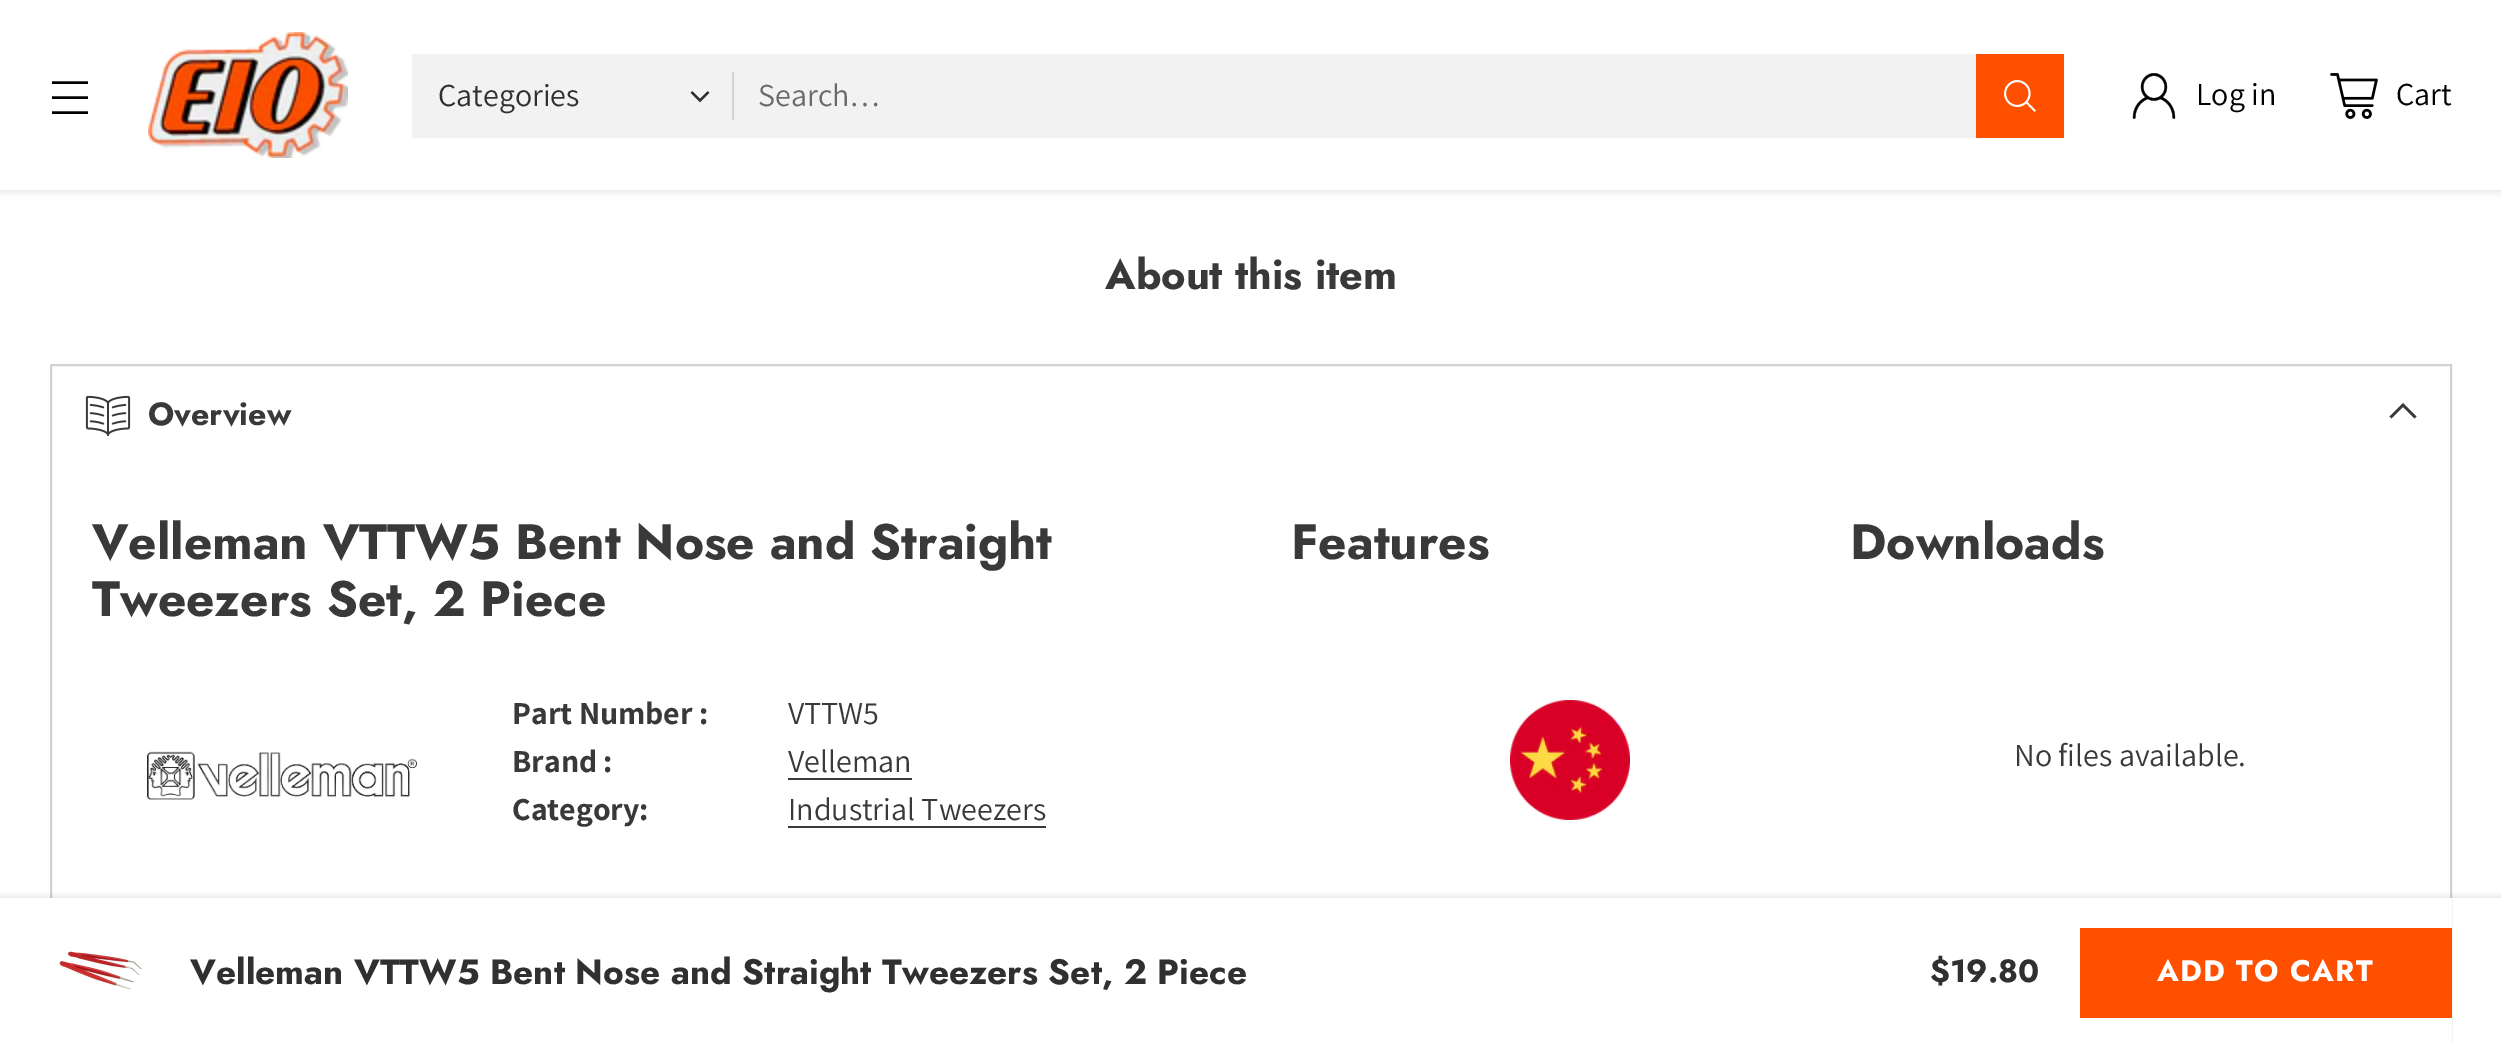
%!PS
<< /PageSize [2501 1045] /PageUsesTransparency true >> setpagedevice
/mt/moveto load def
/li/lineto load def
/st/stroke load def
/gs/gsave load def
/gr/grestore load def
/lw/setlinewidth load def
/co { dup -16 bitshift 255 div exch dup -8 bitshift 255 and 255 div exch 255 and 255 div setrgbcolor } def
/fn { [ exch dup neg 0 0 3 -1 roll 0 0 ] selectfont } def
/tx { co fn moveto show } def
/bx { co rectfill } def
/al { dup .setfillconstantalpha .setstrokeconstantalpha } def
/rr { 5 dict begin { /r /h /w /y /x } { exch def } forall
  x r add y moveto x w add y 2 copy h add r arct x w add y h add x 1 index r arct
  x y h add x y r arct x y 2 copy exch w add exch r arct closepath end } def
/sh { 12 dict begin { /a /b /q /h /w /y /x } { exch def } forall gsave /was 0 def
  9 -2 -9 { dup b mul 4 div /e exch def 1 sub .425 mul 2.718 exch exp 1 add a .99 .min exch div /now exch def
    1 1 now sub 1 was sub div sub al /was now def
    w h .min e 2 mul add 0 gt { x e sub y e sub w e 2 mul add h e 2 mul add
      q e add b .6 mul add w h .min 2 div e add .min 0 .max rr fill } if } for grestore end } def
/im { 5 dict begin { /h /w /y /x /name } { exch def } forall
  gsave x y translate w h scale
  w h 8 [w 0 0 h 0 0] name (r) file false 3 colorimage grestore end } def
0 .pushpdf14devicefilter
0 1045 translate 1 -1 scale
4 setmiterlimit
0 0 2501 1045 16#FFFFFF bx
16#000000 co
0 0 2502 190 0 5 .15 sh
0 0 2501 190 16#FFFFFF bx
16#000000 co
2.6 lw
52 97.5 mt 88 97.5 li 52 82.5 mt 88 82.5 li 52 112.5 mt 88 112.5 li st
(media/1.raw) 148 32 200 126 im
16#F2F2F2 co
2 lw
413 55 1650 82 rectstroke
414 56 1562 80 16#F2F2F2 bx
16#303030 co
2.3 lw
691.5 92 mt 700 100.5 li 708.5 92 li st
732 72 2 48 16#D2D2D2 bx
1976 54 88 84 16#FF5000 bx
(media/2.raw) 2004 80 32 32 im
(media/3.raw) 2132 73 44 46 im
(media/4.raw) 2330 73 48 46 im
16#D2D2D2 co
2 lw
51 365 2400 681 rectstroke
(media/5.raw) 85 395 46 42 im
16#393939 co
2.5 lw
2390.5 417.5 mt 2403 405 li 2415.5 417.5 li st
(media/6.raw) 147 751 270 50 im
788 778 124 2 16#393939 bx
788 826 258 2 16#393939 bx
(media/7.raw) 1510 700 120 120 im
50 898 2402 147 16#FFFFFF bx
(media/8.raw) 59 951 83 39 im
gs
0 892 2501 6 rectclip
16#000000 co
0 898 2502 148 0 5 .15 sh
gr
2080 928 372 90 16#FF5000 bx
(Categories) 438 106 /Assistant-Regular 32 16#303030 tx
(Search…) 758 106 /Assistant-Regular 32 16#6A6A6A tx
(Log in) 2196 105 /Assistant-Regular 32 16#000000 tx
(Cart) 2396 105 /Assistant-Regular 32 16#000000 tx
(About this item) 1105 289 /Jost-Bold 41.5 16#393939 tx
(Overview) 148 425 /Jost-Bold 32 16#393939 tx
(Velleman VTTW5 Bent Nose and Straight) 92 559 /Jost-Bold 49.6 16#393939 tx
(Tweezers Set, 2 Piece) 92 616 /Jost-Bold 49.6 16#393939 tx
(Part Number :) 512 724 /Assistant-Bold 32 16#393939 tx
(VTTW5) 788 724 /Assistant-Regular 32 16#393939 tx
(Brand :) 512 772 /Assistant-Bold 32 16#393939 tx
(Velleman) 788 772 /Assistant-Regular 32 16#393939 tx
(Category:) 512 820 /Assistant-Bold 32 16#393939 tx
(Industrial Tweezers) 788 820 /Assistant-Regular 32 16#393939 tx
(Features) 1291 559 /Jost-Bold 49.6 16#393939 tx
(Downloads) 1850 559 /Jost-Bold 49.6 16#393939 tx
(No files available.) 2014 766 /Assistant-Regular 32 16#393939 tx
(Velleman VTTW5 Bent Nose and Straight Tweezers Set, 2 Piece) 190 984 /Jost-Bold 35.2 16#303030 tx
($19.80) 1930 982 /Jost-Bold 32 16#303030 tx
/Jost-Bold 29.75 fn
16#FFFFFF co
2157 981 mt 1.25 0 (ADD TO CART) ashow
.poppdf14devicefilter showpage
